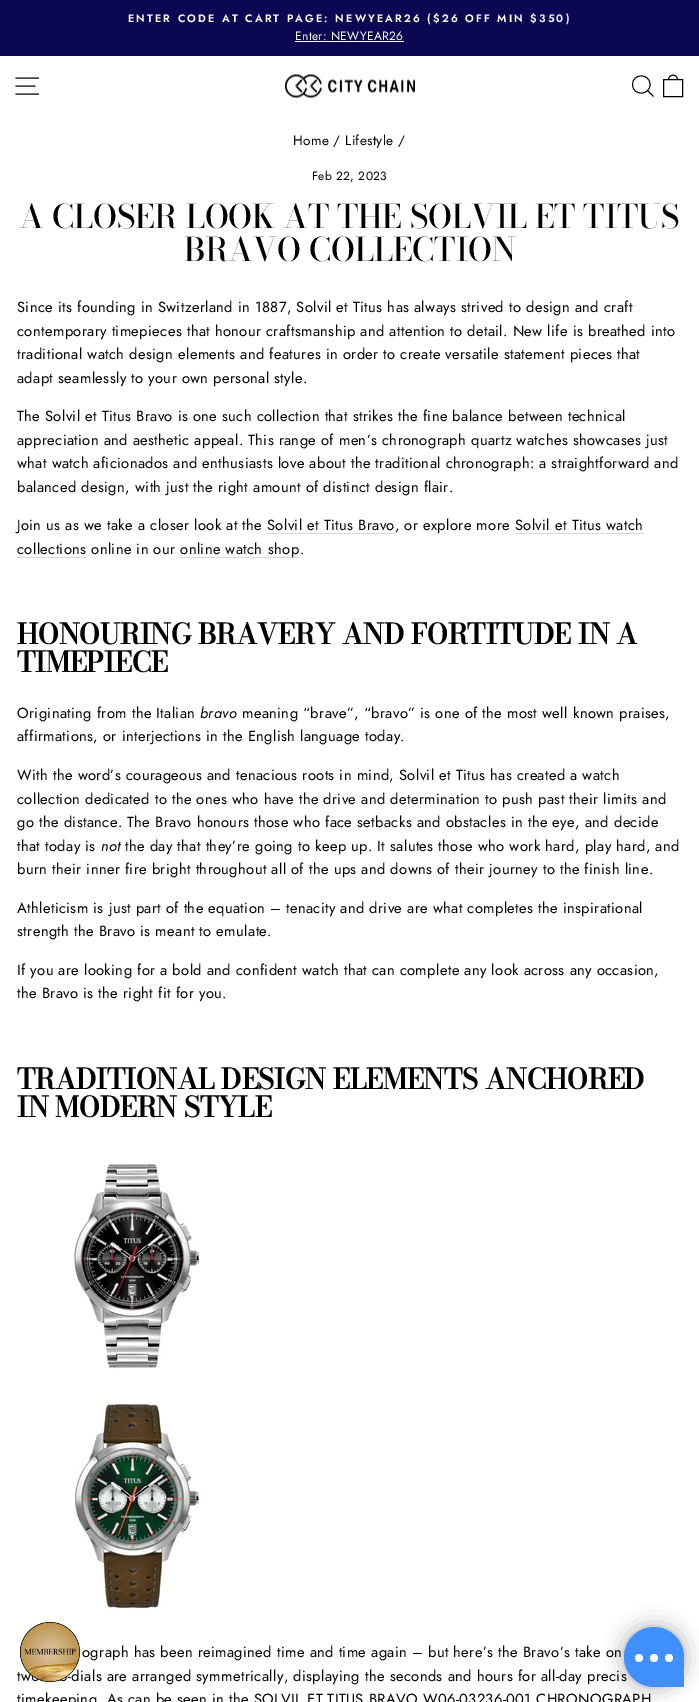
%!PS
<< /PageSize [699 1702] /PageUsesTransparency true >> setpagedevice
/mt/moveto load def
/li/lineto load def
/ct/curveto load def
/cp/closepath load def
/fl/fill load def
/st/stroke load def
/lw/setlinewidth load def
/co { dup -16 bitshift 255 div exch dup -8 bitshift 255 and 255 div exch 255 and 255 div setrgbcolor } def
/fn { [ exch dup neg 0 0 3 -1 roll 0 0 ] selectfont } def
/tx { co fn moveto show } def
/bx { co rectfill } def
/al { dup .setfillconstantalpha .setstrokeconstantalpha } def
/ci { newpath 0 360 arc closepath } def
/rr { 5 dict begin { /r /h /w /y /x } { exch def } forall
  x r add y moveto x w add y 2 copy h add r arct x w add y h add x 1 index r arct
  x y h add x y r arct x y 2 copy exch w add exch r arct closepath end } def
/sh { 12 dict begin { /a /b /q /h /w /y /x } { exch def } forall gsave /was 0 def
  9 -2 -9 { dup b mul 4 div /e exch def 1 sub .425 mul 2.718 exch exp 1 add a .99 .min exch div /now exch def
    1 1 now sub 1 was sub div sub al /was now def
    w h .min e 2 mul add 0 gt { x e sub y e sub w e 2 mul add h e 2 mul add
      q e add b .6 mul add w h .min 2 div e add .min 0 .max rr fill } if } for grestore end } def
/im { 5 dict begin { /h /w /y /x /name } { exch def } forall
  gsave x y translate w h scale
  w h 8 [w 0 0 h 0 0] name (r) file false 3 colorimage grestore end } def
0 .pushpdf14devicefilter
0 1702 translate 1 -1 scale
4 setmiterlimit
0 0 699 1702 16#FFFFFF bx
0 0 699 56 16#0C0752 bx
295 41 109 1 16#FFFFFF bx
16#000000 co
.9 lw
15.5 78 mt 39 78 li 15.5 86 mt 35.5 86 li 15.5 94 mt 39 94 li st
(media/1.raw) 285 74 130 24 im
650 84.5 mt 650 96 632.5 96 632.5 84.5 ct 632.5 73 650 73 650 84.5 ct cp 653.5 96.5 mt 647.5 90.5 li 663.5 79.5 mt 682.5 79.5 li 682.5 96.5 li 663.5 96.5 li cp 668.5 79.5 mt 668.5 73.5 677.5 73.5 677.5 79.5 ct st
17 557 70 1 16#D9D9D9 bx
180 557 119 1 16#D9D9D9 bx
(media/2.raw) 73 1162 127 207 im
(media/3.raw) 73 1402 128 208 im
16#777777 co
624 1627 60 60 30 10 .64 sh
/Jost-SemiBold 10.8 fn
16#FFFFFF co
128 22 mt 2.15 0 (ENTER CODE AT CART PAGE: NEWYEAR26 \($26 OFF MIN $350\)) ashow
/Jost-Regular 12 fn
295 40 mt .37 0 (Enter: NEWYEAR26) ashow
/Jost-Regular 13.5 fn
16#000000 co
293 145 mt .37 0 (Home / Lifestyle /) ashow
/Jost-Regular 12 fn
312 180 mt .37 0 (Feb 22, 2023) ashow
(A CLOSER LOOK AT THE SOLVIL ET TITUS) 19 228 /BodoniModa-Medium 32.3 16#000000 tx
(BRAVO COLLECTION) 184 261 /BodoniModa-Medium 32.3 16#000000 tx
/Jost-Regular 14.7 fn
17 312 mt .37 0 (Since its founding in Switzerland in 1887, Solvil et Titus has always strived to design and craft) ashow
17 336 mt .37 0 (contemporary timepieces that honour craftsmanship and attention to detail. New life is breathed into) ashow
17 359 mt .37 0 (traditional watch design elements and features in order to create versatile statement pieces that) ashow
17 383 mt .37 0 (adapt seamlessly to your own personal style.) ashow
17 421 mt .37 0 (The Solvil et Titus Bravo is one such collection that strikes the fine balance between technical) ashow
17 445 mt .37 0 (appreciation and aesthetic appeal. This range of men’s chronograph quartz watches showcases just) ashow
17 468 mt .37 0 (what watch aficionados and enthusiasts love about the traditional chronograph: a straightforward and) ashow
17 492 mt .37 0 (balanced design, with just the right amount of distinct design flair.) ashow
17 530 mt .37 0 (Join us as we take a closer look at the Solvil et Titus Bravo, or explore more Solvil et Titus watch) ashow
267 533 128 1 16#D9D9D9 bx
16#000000 co
17 554 mt .37 0 (collections online in our online watch) ashow
516 533 128 1 16#D9D9D9 bx
16#000000 co
268 554 mt .37 0 (shop.) ashow
(HONOURING BRAVERY AND FORTITUDE IN A) 17 644 /BodoniModa-Bold 27.75 16#000000 tx
(TIMEPIECE) 17 672 /BodoniModa-Bold 27.75 16#000000 tx
/Jost-Regular 14.7 fn
17 718 mt .37 0 (Originating from the Italian) ashow
/Jost-Italic 14.7 fn
200 718 mt .37 0 (bravo) ashow
/Jost-Regular 14.7 fn
242 718 mt .37 0 (meaning “brave”, “bravo” is one of the most well known praises,) ashow
17 741 mt .37 0 (affirmations, or interjections in the English language today.) ashow
17 780 mt .37 0 (With the word’s courageous and tenacious roots in mind, Solvil et Titus has created a watch) ashow
17 804 mt .37 0 (collection dedicated to the ones who have the drive and determination to push past their limits and) ashow
17 827 mt .37 0 (go the distance. The Bravo honours those who face setbacks and obstacles in the eye, and decide) ashow
17 851 mt .37 0 (that today is) ashow
/Jost-Italic 14.7 fn
101 851 mt .37 0 (not) ashow
/Jost-Regular 14.7 fn
125 851 mt .37 0 (the day that they’re going to keep up. It salutes those who work hard, play hard, and) ashow
17 874 mt .37 0 (burn their inner fire bright throughout all of the ups and downs of their journey to the finish line.) ashow
17 913 mt .37 0 (Athleticism is just part of the equation – tenacity and drive are what completes the inspirational) ashow
17 936 mt .37 0 (strength the Bravo is meant to emulate.) ashow
17 975 mt .37 0 (If you are looking for a bold and confident watch that can complete any look across any occasion,) ashow
17 998 mt .37 0 (the Bravo is the right fit for you.) ashow
(TRADITIONAL DESIGN ELEMENTS ANCHORED) 17 1089 /BodoniModa-Bold 27.75 16#000000 tx
(IN MODERN STYLE) 17 1117 /BodoniModa-Bold 27.75 16#000000 tx
/Jost-Regular 14.7 fn
82 1657 mt .37 0 (ograph has been reimagined time and time again – but here’s the Bravo’s take on) ashow
17 1681 mt .37 0 (tw) ashow
68 1681 mt .37 0 (-dials are arranged symmetrically, displaying the seconds and hours for all-day precis) ashow
17 1704 mt .37 0 (timekeeping. As can be seen in the SOLVIL ET TITUS BRAVO W06-03236-001 CHRONOGRAPH) ashow
16#0B0B45 co
50 1652 30 ci fl
(media/4.raw) 20 1622 60 60 im
16#408FFF co
654 1627 mt 670.5 1627 684 1640.5 684 1657 ct 684 1687 li 654 1687 li 637.5 1687 624 1673.5 624 1657 ct 624 1640.5 637.5 1627 654 1627 ct cp fl
16#FFFFFF co
639 1658 4 ci fl
654 1658 4 ci fl
669 1658 4 ci fl
.poppdf14devicefilter showpage
